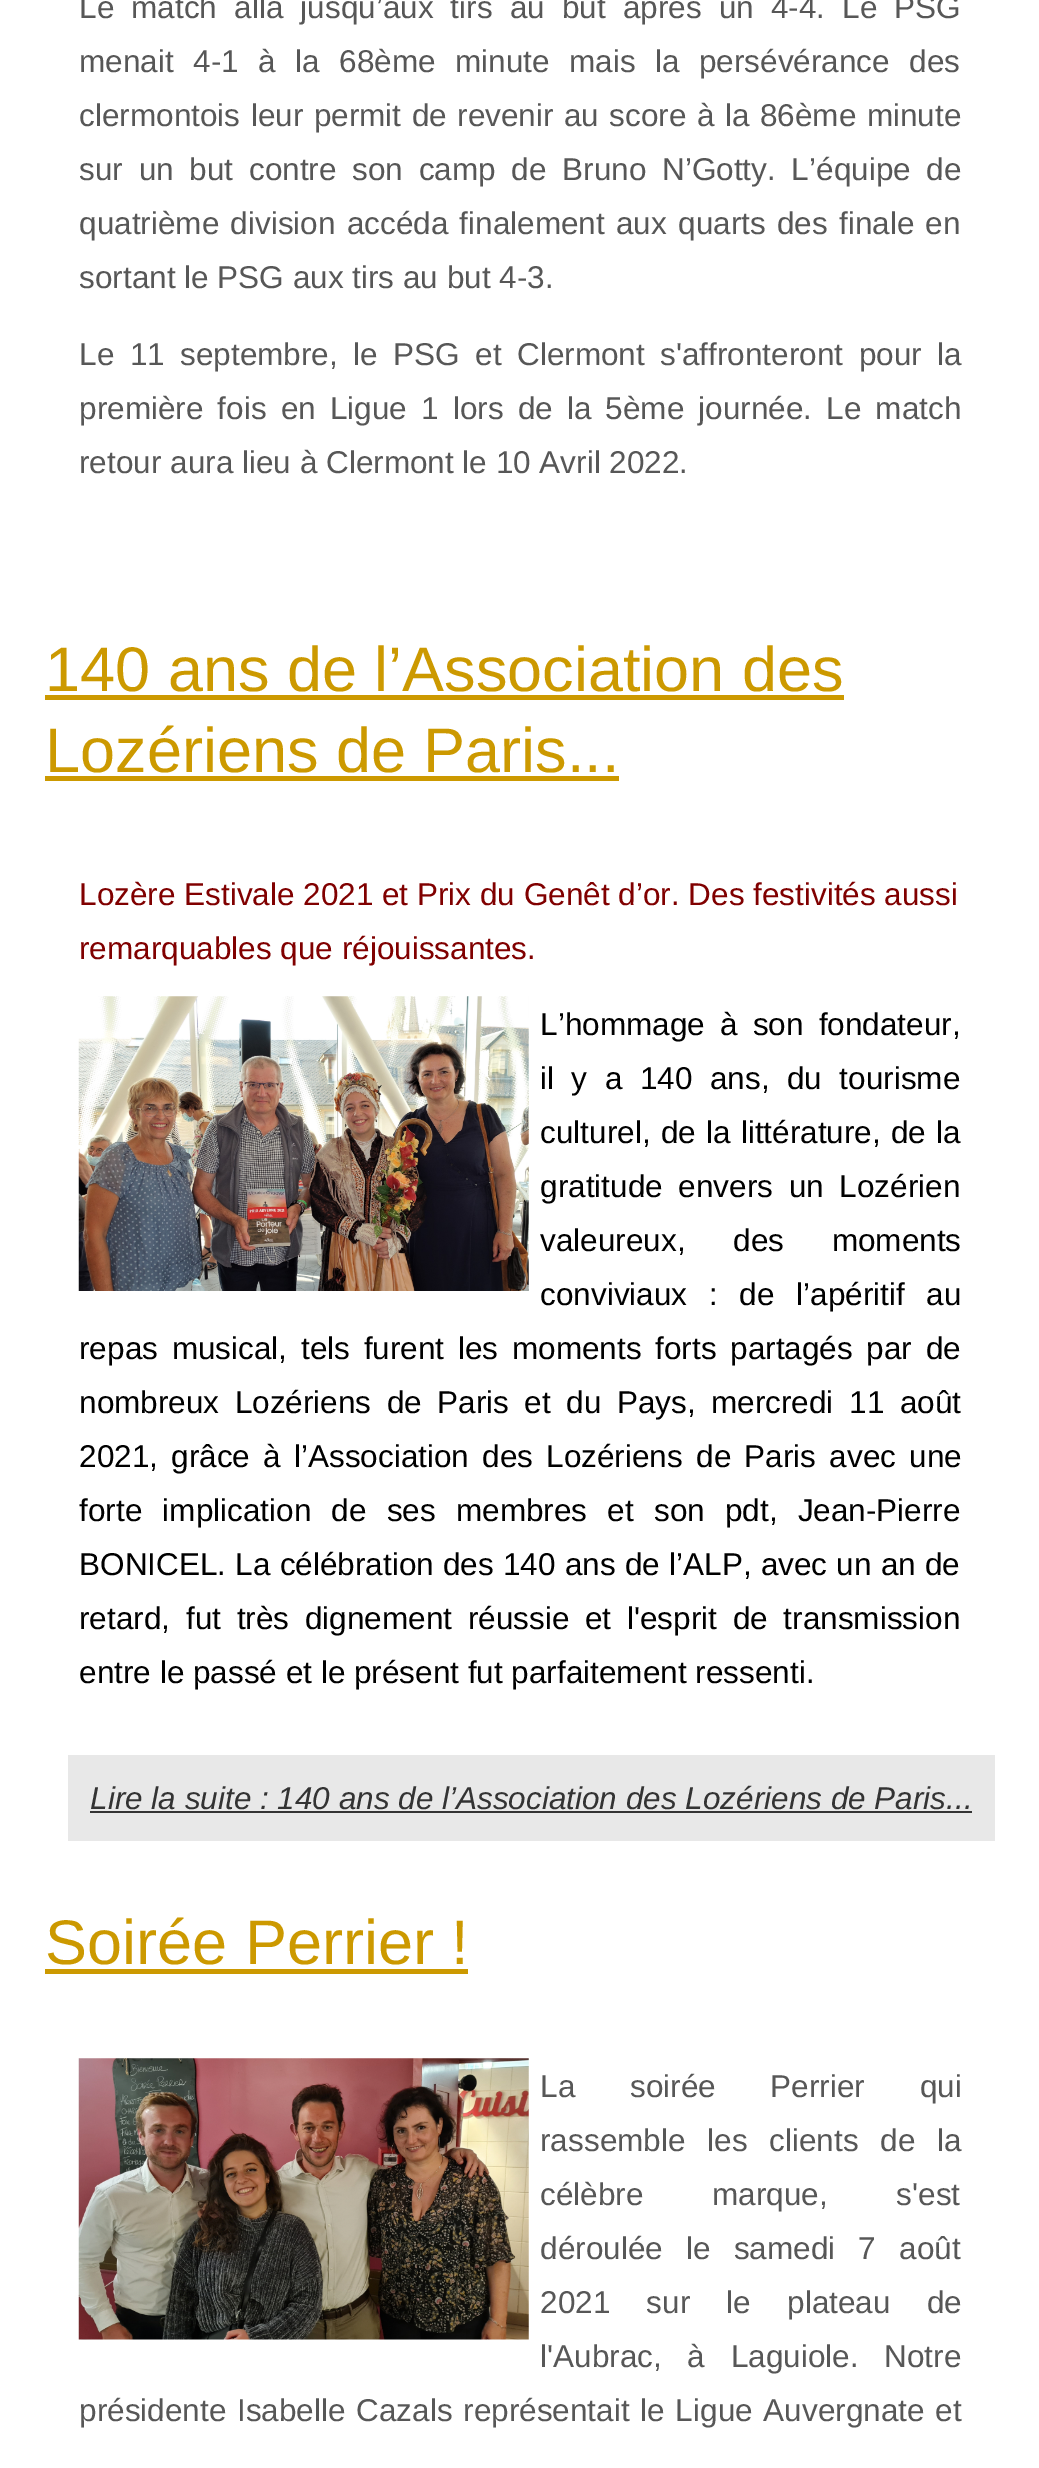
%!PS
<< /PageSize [1039 2468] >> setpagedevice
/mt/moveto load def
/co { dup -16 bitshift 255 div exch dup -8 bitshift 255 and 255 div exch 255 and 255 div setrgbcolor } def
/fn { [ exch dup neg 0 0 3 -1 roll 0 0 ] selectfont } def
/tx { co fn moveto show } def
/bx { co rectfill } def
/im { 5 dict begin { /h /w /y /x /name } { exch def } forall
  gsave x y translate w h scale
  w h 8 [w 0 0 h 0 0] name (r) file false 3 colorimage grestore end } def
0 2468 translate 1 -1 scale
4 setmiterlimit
0 0 1039 2468 16#FFFFFF bx
45 695 799 5 16#CC9900 bx
45 776 574 5 16#CC9900 bx
(media/1.raw) 78 996 451 295 im
68 1755 927 86 16#E8E8E8 bx
90 1811 882 2 16#333333 bx
45 1969 423 5 16#CC9900 bx
(media/2.raw) 78 2058 451 282 im
/LiberationSans-Regular 31.5 fn
16#575757 co
79 18 mt 8.4 0 32 (Le match alla jusqu’aux tirs au but après un 4-4. Le PSG) widthshow
79 72 mt 10.75 0 32 (menait 4-1 à la 68ème minute mais la persévérance des) widthshow
79 126 mt 1.75 0 32 (clermontois leur permit de revenir au score à la 86ème minute) widthshow
79 180 mt 7 0 32 (sur un but contre son camp de Bruno N’Gotty. L’équipe de) widthshow
79 234 mt 2.5 0 32 (quatrième division accéda finalement aux quarts des finale en) widthshow
(sortant le PSG aux tirs au but 4-3.) 79 288 /LiberationSans-Regular 31.5 16#575757 tx
79 365 mt 6.75 0 32 (Le 11 septembre, le PSG et Clermont s'affronteront pour la) widthshow
79 419 mt 5.4 0 32 (première fois en Ligue 1 lors de la 5ème journée. Le match) widthshow
(retour aura lieu à Clermont le 10 Avril 2022.) 79 473 /LiberationSans-Regular 31.5 16#575757 tx
(140 ans de l’Association des) 45 691 /LiberationSans-Regular 63 16#CC9900 tx
(Lozériens de Paris...) 45 772 /LiberationSans-Regular 63 16#CC9900 tx
(Lozère Estivale 2021 et Prix du Genêt d’or. Des festivités aussi) 79 905 /LiberationSans-Regular 31.5 16#800000 tx
(remarquables que réjouissantes.) 79 959 /LiberationSans-Regular 31.5 16#800000 tx
16#000000 co
540 1035 mt 6.5 0 32 (L’hommage à son fondateur,) widthshow
540 1089 mt 8.75 0 32 (il y a 140 ans, du tourisme) widthshow
540 1143 mt 1.5 0 32 (culturel, de la littérature, de la) widthshow
540 1197 mt 7 0 32 (gratitude envers un Lozérien) widthshow
540 1251 mt 39 0 32 (valeureux, des moments) widthshow
540 1305 mt 13 0 32 (conviviaux : de l’apéritif au) widthshow
79 1359 mt 5 0 32 (repas musical, tels furent les moments forts partagés par de) widthshow
79 1413 mt 6.75 0 32 (nombreux Lozériens de Paris et du Pays, mercredi 11 août) widthshow
79 1467 mt 4.5 0 32 (2021, grâce à l’Association des Lozériens de Paris avec une) widthshow
79 1521 mt 11.5 0 32 (forte implication de ses membres et son pdt, Jean-Pierre) widthshow
79 1575 mt .5 0 32 (BONICEL. La célébration des 140 ans de l’ALP, avec un an de) widthshow
79 1629 mt 7 0 32 (retard, fut très dignement réussie et l'esprit de transmission) widthshow
(entre le passé et le présent fut parfaitement ressenti.) 79 1683 /LiberationSans-Regular 31.5 16#000000 tx
(Lire la suite : 140 ans de l’Association des Lozériens de Paris...) 90 1809 /LiberationSans-Italic 31.5 16#333333 tx
(Soirée Perrier !) 45 1964 /LiberationSans-Regular 63 16#CC9900 tx
/LiberationSans-Regular 31.5 fn
16#575757 co
540 2097 mt 46 0 32 (La soirée Perrier qui) widthshow
540 2151 mt 13 0 32 (rassemble les clients de la) widthshow
540 2205 mt 60 0 32 (célèbre marque, s'est) widthshow
540 2259 mt 14.5 0 32 (déroulée le samedi 7 août) widthshow
540 2313 mt 27.5 0 32 (2021 sur le plateau de) widthshow
540 2367 mt 17 0 32 (l'Aubrac, à Laguiole. Notre) widthshow
79 2421 mt 2 0 32 (présidente Isabelle Cazals représentait le Ligue Auvergnate et) widthshow
showpage
